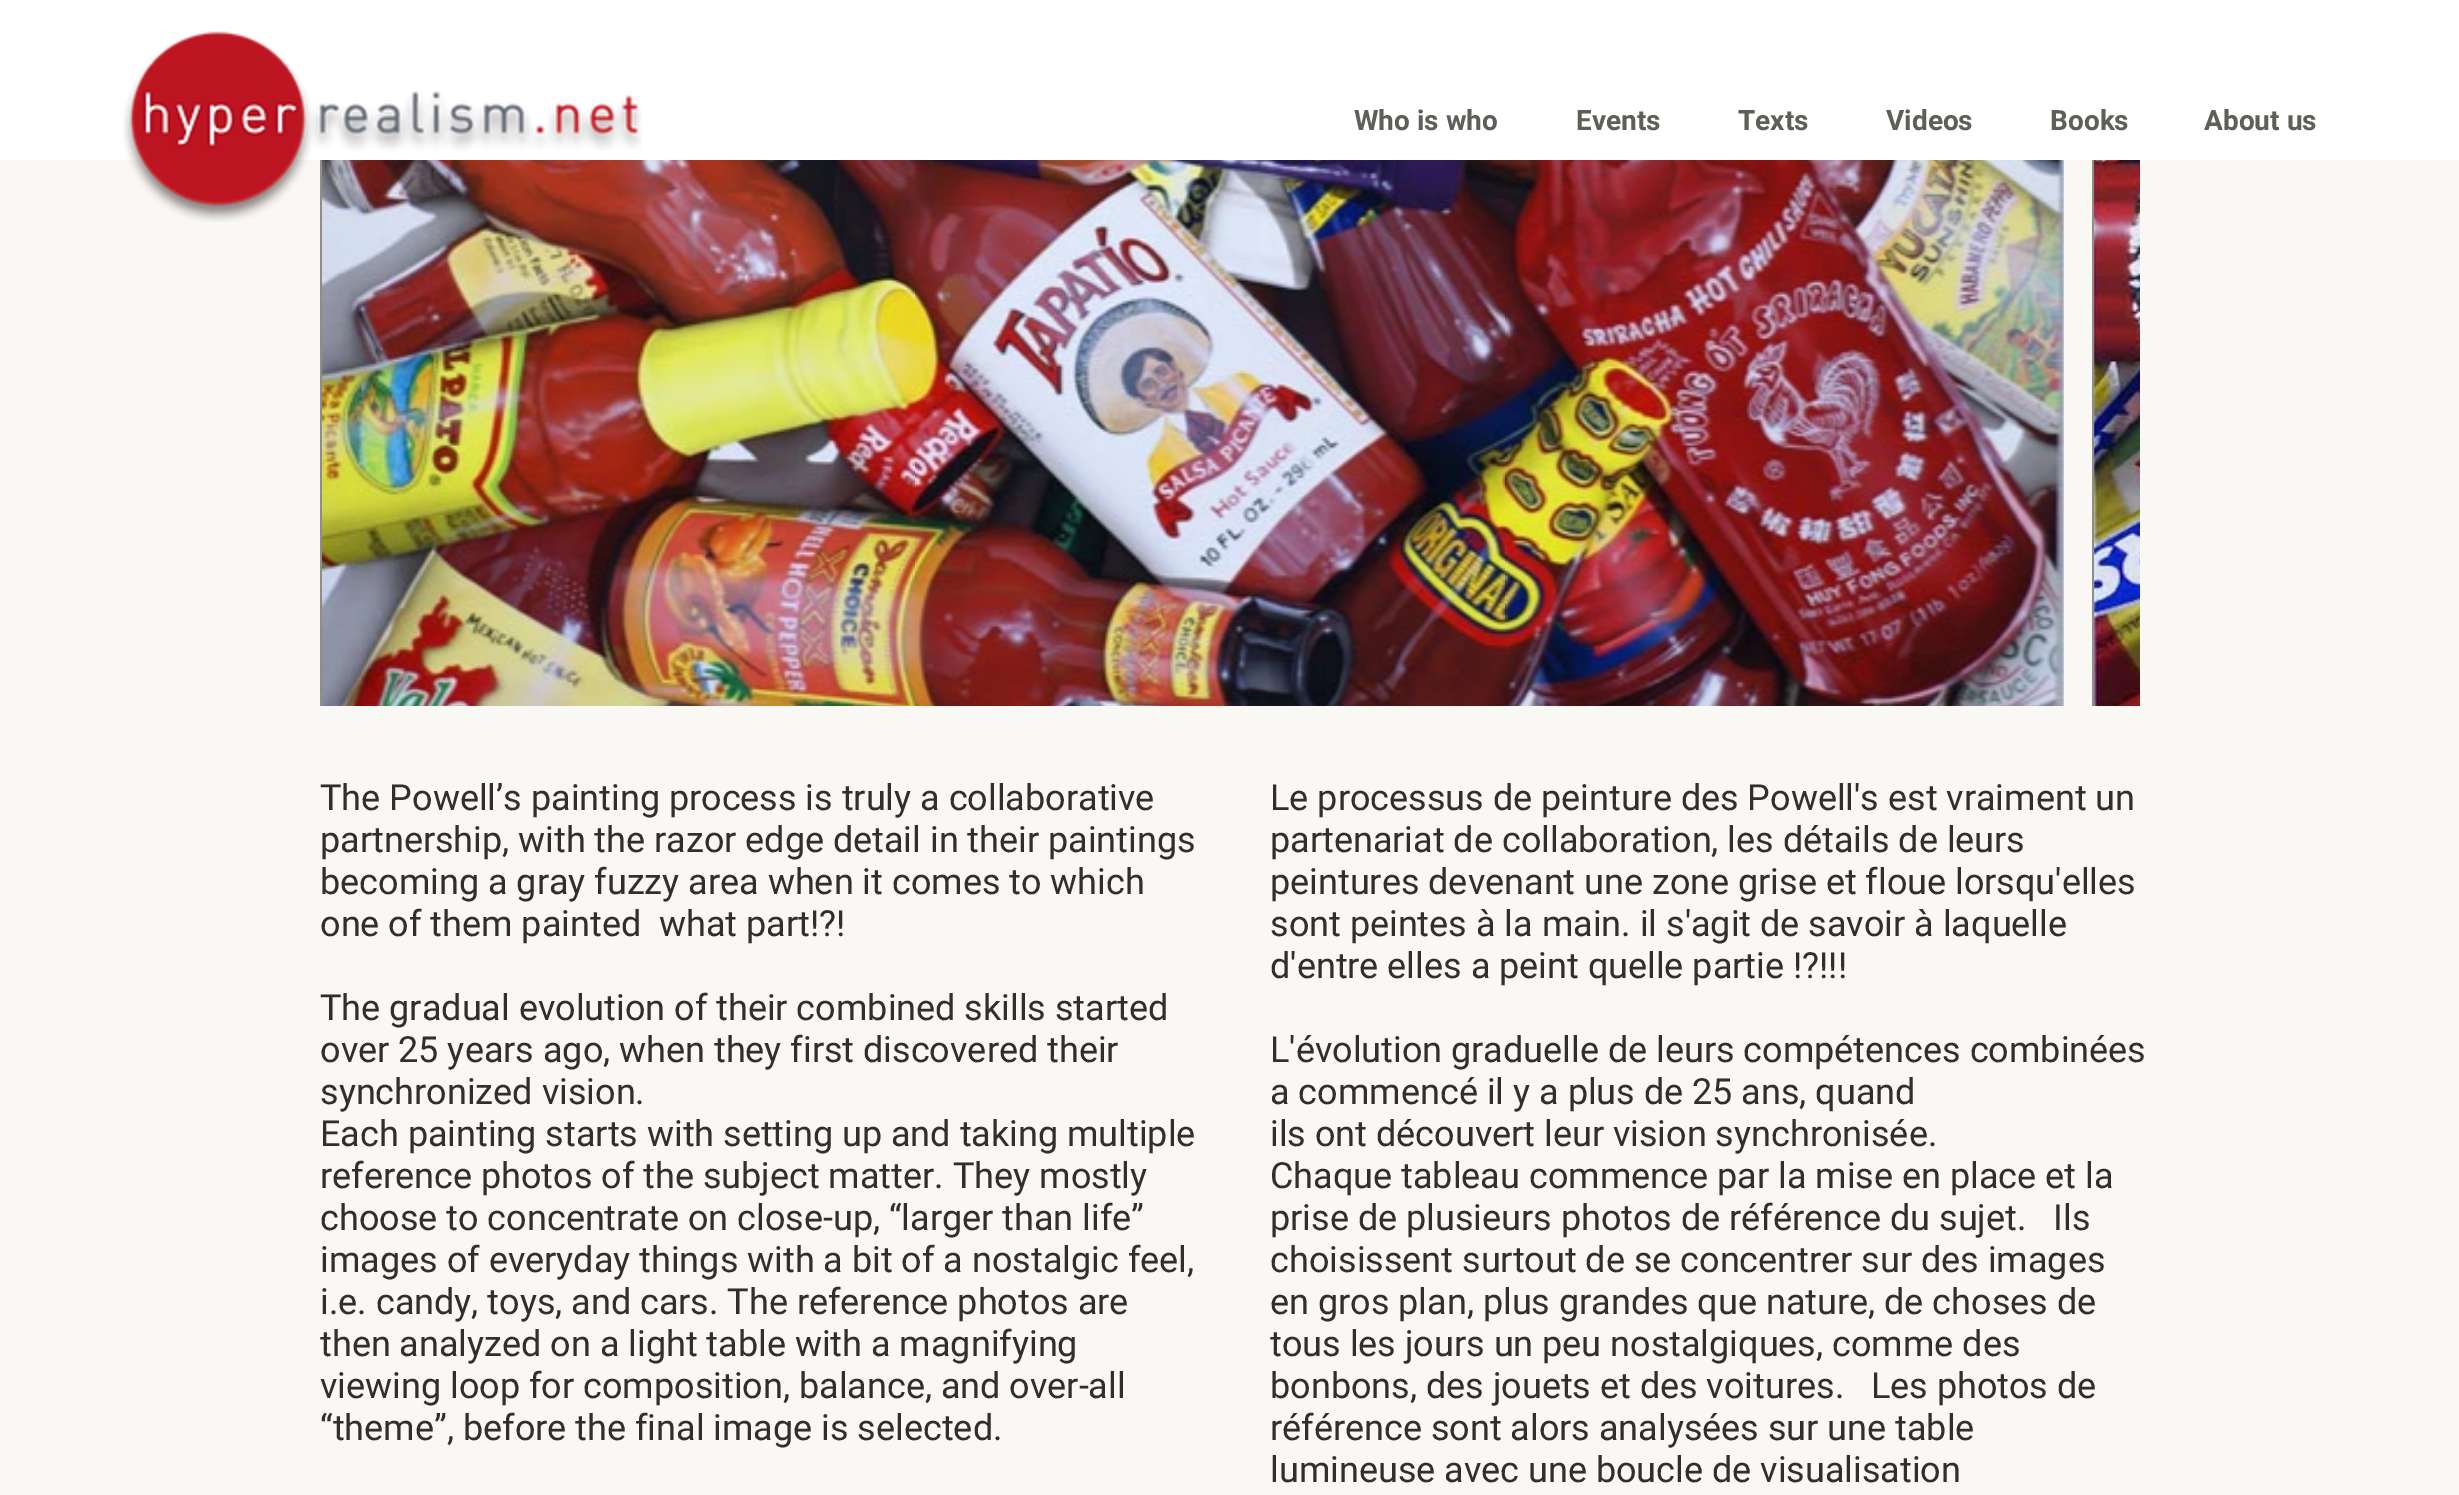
%!PS
<< /PageSize [2459 1495] >> setpagedevice
/co { dup -16 bitshift 255 div exch dup -8 bitshift 255 and 255 div exch 255 and 255 div setrgbcolor } def
/fn { [ exch dup neg 0 0 3 -1 roll 0 0 ] selectfont } def
/tx { co fn moveto show } def
/bx { co rectfill } def
/im { 5 dict begin { /h /w /y /x /name } { exch def } forall
  gsave x y translate w h scale
  w h 8 [w 0 0 h 0 0] name (r) file false 3 colorimage grestore end } def
0 1495 translate 1 -1 scale
4 setmiterlimit
0 0 2459 1495 16#FAF8F5 bx
0 0 2459 160 16#FFFFFF bx
320 160 2 546 16#908D86 bx
(media/2.raw) 322 160 1742 546 im
(media/1.raw) 123 31 519 191 im
2092 160 2 546 16#908D86 bx
(media/3.raw) 2094 160 46 546 im
(Who is who) 1354 130 /Roboto-Bold 28 16#605E59 tx
(Events) 1576 130 /Roboto-Bold 28 16#605E59 tx
(Texts) 1738 130 /Roboto-Bold 28 16#605E59 tx
(Videos) 1886 130 /Roboto-Bold 28 16#605E59 tx
(Books) 2050 130 /Roboto-Bold 28 16#605E59 tx
(About us) 2204 130 /Roboto-Bold 28 16#605E59 tx
(The Powell’s painting process is truly a collaborative) 320 810 /Roboto-Regular 36 16#302F2D tx
(partnership, with the razor edge detail in their paintings) 320 852 /Roboto-Regular 36 16#302F2D tx
(becoming a gray fuzzy area when it comes to which) 320 894 /Roboto-Regular 36 16#302F2D tx
(one of them painted  what part!?!) 320 936 /Roboto-Regular 36 16#302F2D tx
(The gradual evolution of their combined skills started) 320 1020 /Roboto-Regular 36 16#302F2D tx
(over 25 years ago, when they first discovered their) 320 1062 /Roboto-Regular 36 16#302F2D tx
(synchronized vision.) 320 1104 /Roboto-Regular 36 16#302F2D tx
(Each painting starts with setting up and taking multiple) 320 1146 /Roboto-Regular 36 16#302F2D tx
(reference photos of the subject matter. They mostly) 320 1188 /Roboto-Regular 36 16#302F2D tx
(choose to concentrate on close-up, “larger than life”) 320 1230 /Roboto-Regular 36 16#302F2D tx
(images of everyday things with a bit of a nostalgic feel,) 320 1272 /Roboto-Regular 36 16#302F2D tx
(i.e. candy, toys, and cars. The reference photos are) 320 1314 /Roboto-Regular 36 16#302F2D tx
(then analyzed on a light table with a magnifying) 320 1356 /Roboto-Regular 36 16#302F2D tx
(viewing loop for composition, balance, and over-all) 320 1398 /Roboto-Regular 36 16#302F2D tx
(“theme”, before the final image is selected.) 320 1440 /Roboto-Regular 36 16#302F2D tx
(Le processus de peinture des Powell's est vraiment un) 1270 810 /Roboto-Regular 36 16#302F2D tx
(partenariat de collaboration, les détails de leurs) 1270 852 /Roboto-Regular 36 16#302F2D tx
(peintures devenant une zone grise et floue lorsqu'elles) 1270 894 /Roboto-Regular 36 16#302F2D tx
(sont peintes à la main. il s'agit de savoir à laquelle) 1270 936 /Roboto-Regular 36 16#302F2D tx
(d'entre elles a peint quelle partie !?!!!) 1270 978 /Roboto-Regular 36 16#302F2D tx
(L'évolution graduelle de leurs compétences combinées) 1270 1062 /Roboto-Regular 36 16#302F2D tx
(a commencé il y a plus de 25 ans, quand) 1270 1104 /Roboto-Regular 36 16#302F2D tx
(ils ont découvert leur vision synchronisée.) 1270 1146 /Roboto-Regular 36 16#302F2D tx
(Chaque tableau commence par la mise en place et la) 1270 1188 /Roboto-Regular 36 16#302F2D tx
(prise de plusieurs photos de référence du sujet.   Ils) 1270 1230 /Roboto-Regular 36 16#302F2D tx
(choisissent surtout de se concentrer sur des images) 1270 1272 /Roboto-Regular 36 16#302F2D tx
(en gros plan, plus grandes que nature, de choses de) 1270 1314 /Roboto-Regular 36 16#302F2D tx
(tous les jours un peu nostalgiques, comme des) 1270 1356 /Roboto-Regular 36 16#302F2D tx
(bonbons, des jouets et des voitures.   Les photos de) 1270 1398 /Roboto-Regular 36 16#302F2D tx
(référence sont alors analysées sur une table) 1270 1440 /Roboto-Regular 36 16#302F2D tx
(lumineuse avec une boucle de visualisation) 1270 1482 /Roboto-Regular 36 16#302F2D tx
showpage
